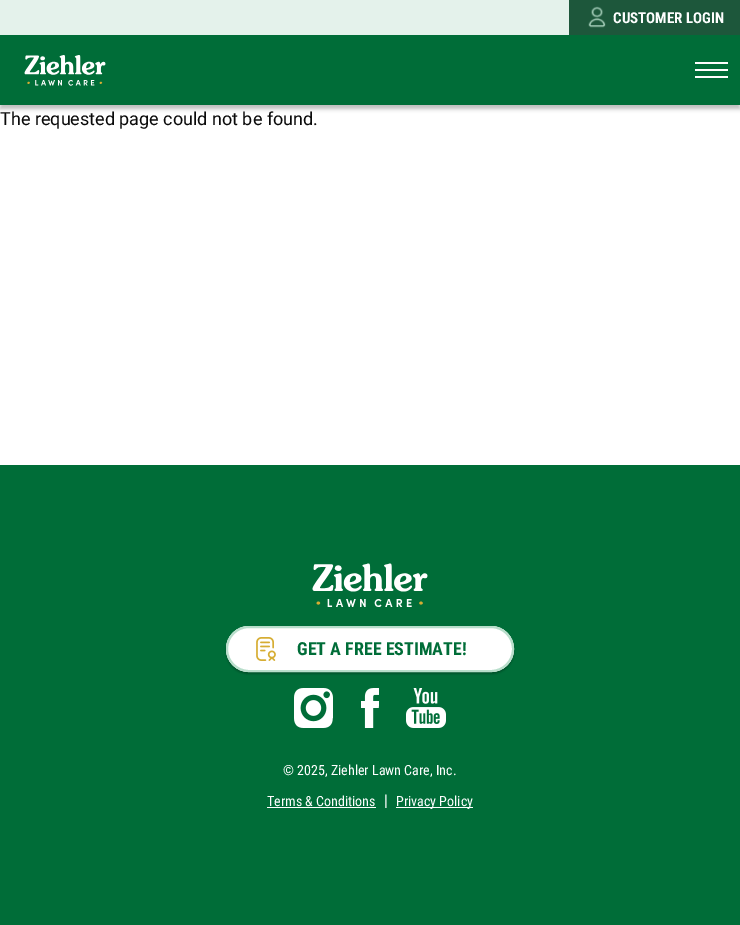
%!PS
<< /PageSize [740 925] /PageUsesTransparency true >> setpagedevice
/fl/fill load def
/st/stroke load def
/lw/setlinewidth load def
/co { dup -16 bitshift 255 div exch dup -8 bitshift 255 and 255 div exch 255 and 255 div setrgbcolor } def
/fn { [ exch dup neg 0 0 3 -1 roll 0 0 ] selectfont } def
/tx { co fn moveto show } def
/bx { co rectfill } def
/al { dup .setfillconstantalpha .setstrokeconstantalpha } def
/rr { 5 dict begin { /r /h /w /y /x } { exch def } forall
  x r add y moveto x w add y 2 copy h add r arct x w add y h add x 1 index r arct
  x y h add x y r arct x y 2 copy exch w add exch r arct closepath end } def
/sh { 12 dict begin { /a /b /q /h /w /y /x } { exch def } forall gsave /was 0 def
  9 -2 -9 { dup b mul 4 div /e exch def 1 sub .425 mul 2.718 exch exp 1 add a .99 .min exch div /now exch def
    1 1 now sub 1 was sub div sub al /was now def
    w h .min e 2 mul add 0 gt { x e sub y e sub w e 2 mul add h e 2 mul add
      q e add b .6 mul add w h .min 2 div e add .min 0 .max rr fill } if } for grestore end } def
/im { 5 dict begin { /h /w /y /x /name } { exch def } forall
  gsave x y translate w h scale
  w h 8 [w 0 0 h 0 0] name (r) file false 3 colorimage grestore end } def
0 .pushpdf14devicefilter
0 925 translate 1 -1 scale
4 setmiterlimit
0 0 740 925 16#FFFFFF bx
0 0 569 35 16#E4F2EB bx
569 0 171 35 16#1D573B bx
(media/1.raw) 588 6 18 22 im
16#000000 co
0 39 740 70 0 2 .25 sh
0 35 740 70 16#006D38 bx
(media/2.raw) 24 55 82 31 im
695 76 33 2 16#FEFEFE bx
695 69 33 2 16#FEFEFE bx
695 62 33 2 16#FEFEFE bx
0 465 740 460 16#006D38 bx
(media/3.raw) 312 563 116 44 im
16#000000 co
226 628 288 46 23 1 .25 sh
16#FFFFFF co
226 626 288 46 23 rr fl
(media/4.raw) 256 637 20 24 im
16#B8DECB co
2 lw
227 627 286 44 22 rr st
(media/5.raw) 294 688 39 40 im
(media/6.raw) 361 688 18 40 im
(media/7.raw) 406 688 40 40 im
267 807 109 1 16#FEFEFE bx
396 807 77 1 16#FEFEFE bx
(CUSTOMER LOGIN) 613 23 /RobotoCondensed-Bold 15 16#FEFEFE tx
(The requested page could not be found.) 0 125 /Roboto-Regular 18 16#0A0A0A tx
(GET A FREE ESTIMATE!) 297 655 /RobotoCondensed-Bold 18 16#006D38 tx
(© 2025, Ziehler Lawn Care, Inc.) 283 775 /RobotoCondensed-Regular 14 16#FEFEFE tx
(Terms & Conditions) 267 806 /RobotoCondensed-Regular 14 16#FEFEFE tx
(|) 384 806 /Roboto-Regular 16 16#FEFEFE tx
(Privacy Policy) 396 806 /RobotoCondensed-Regular 14 16#FEFEFE tx
.poppdf14devicefilter showpage
